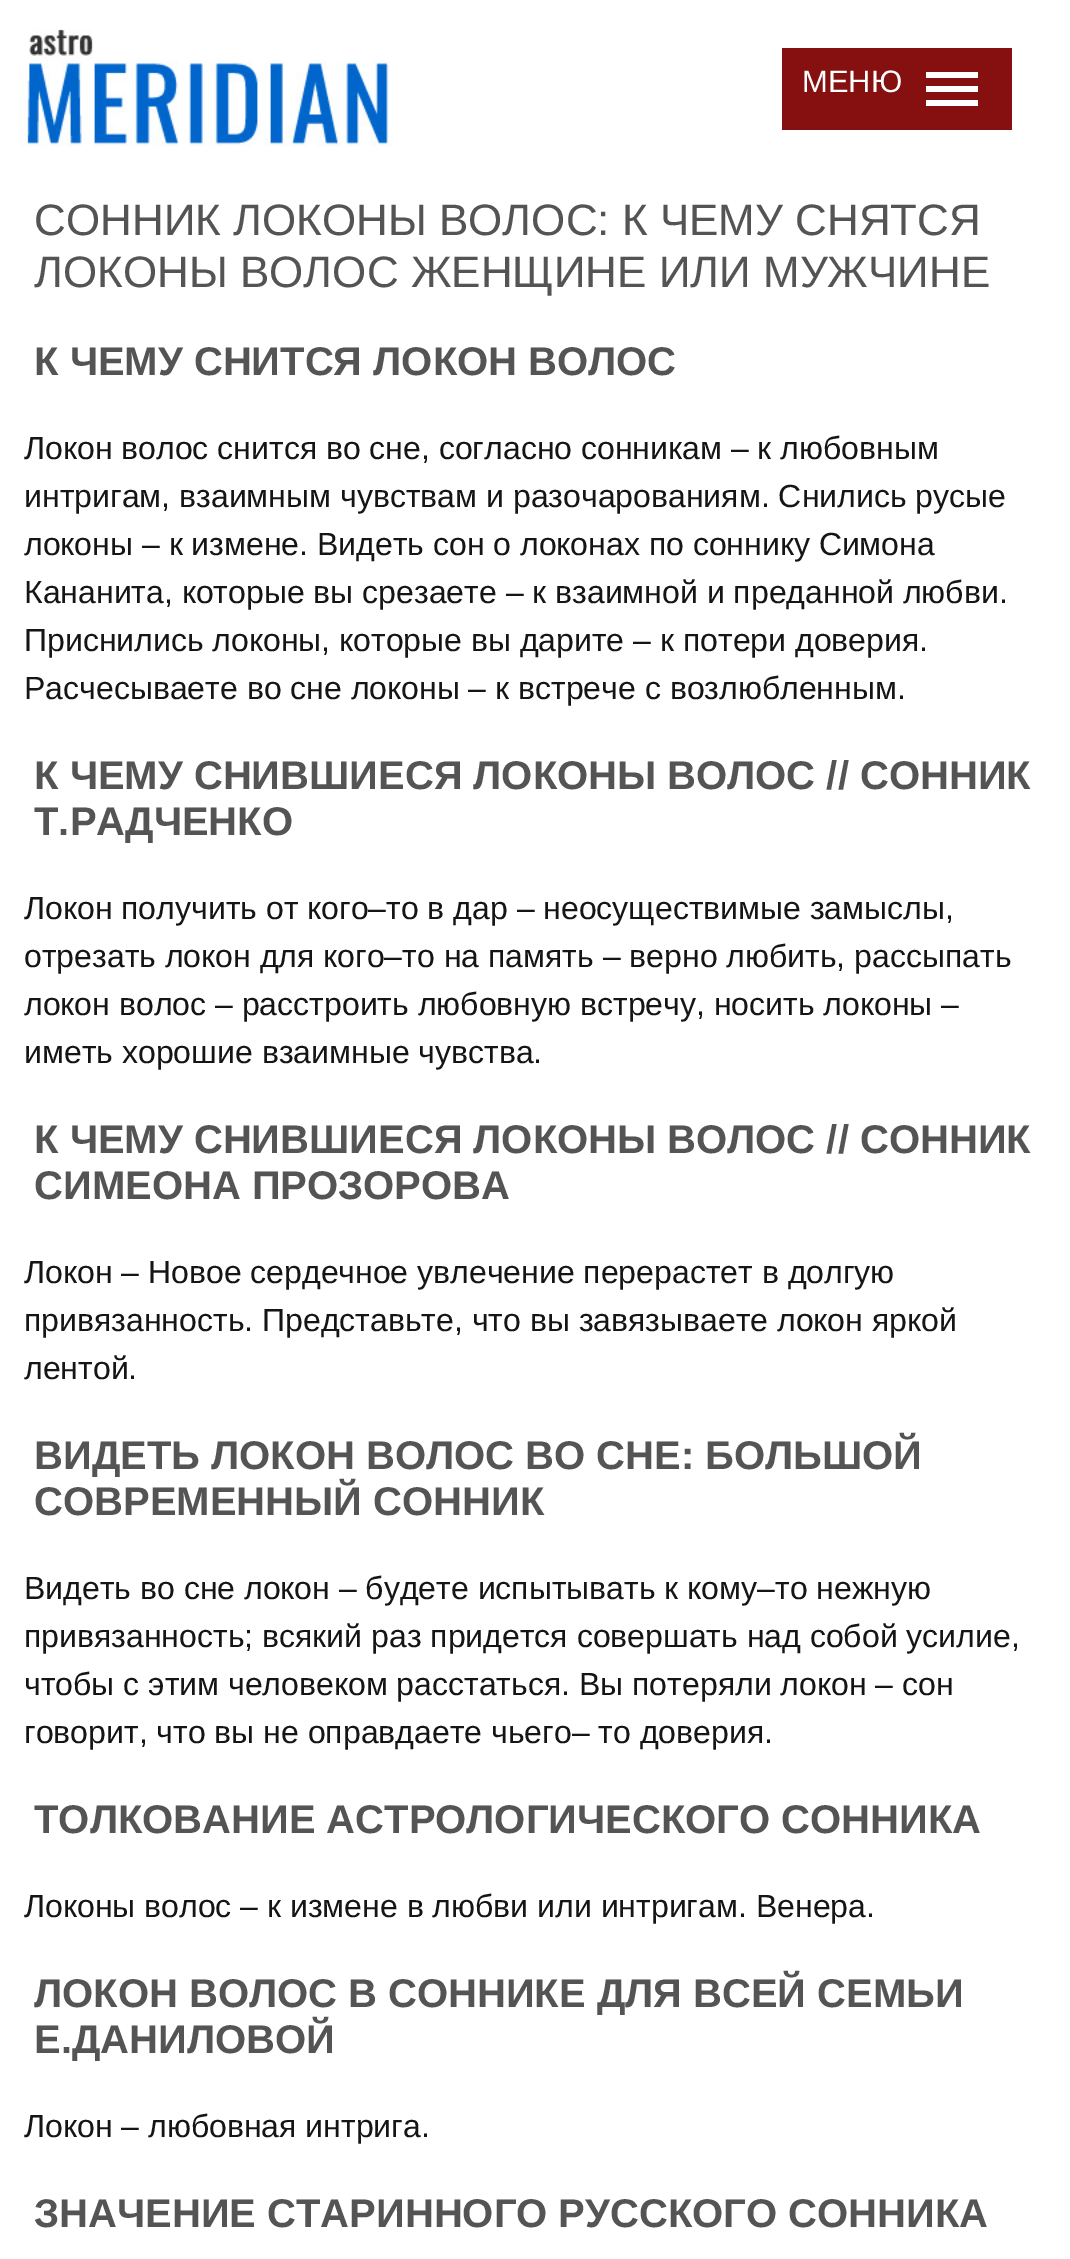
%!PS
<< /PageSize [1070 2259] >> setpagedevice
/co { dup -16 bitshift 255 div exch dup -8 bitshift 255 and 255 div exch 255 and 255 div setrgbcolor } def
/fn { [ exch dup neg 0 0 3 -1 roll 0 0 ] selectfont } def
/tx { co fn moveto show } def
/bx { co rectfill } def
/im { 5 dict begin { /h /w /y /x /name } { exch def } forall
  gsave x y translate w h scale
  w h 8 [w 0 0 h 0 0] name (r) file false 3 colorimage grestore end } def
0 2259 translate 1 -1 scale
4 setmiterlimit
0 0 1070 2259 16#FFFFFF bx
(media/1.raw) 19 29 373 118 im
782 48 230 82 16#860F0F bx
926 72 52 6 16#FFFFFF bx
926 86 52 6 16#FFFFFF bx
926 100 52 6 16#FFFFFF bx
(МЕНЮ) 802 92 /LiberationSans-Regular 31 16#FFFFFF tx
(СОННИК ЛОКОНЫ ВОЛОС: К ЧЕМУ СНЯТСЯ) 34 235 /LiberationSans-Regular 44 16#545454 tx
(ЛОКОНЫ ВОЛОС ЖЕНЩИНЕ ИЛИ МУЖЧИНЕ) 34 287 /LiberationSans-Regular 44 16#545454 tx
(К ЧЕМУ СНИТСЯ ЛОКОН ВОЛОС) 34 375 /LiberationSans-Bold 40 16#545454 tx
(Локон волос снится во сне, согласно сонникам – к любовным) 24 459 /LiberationSans-Regular 32 16#151515 tx
(интригам, взаимным чувствам и разочарованиям. Снились русые) 24 507 /LiberationSans-Regular 32 16#151515 tx
(локоны – к измене. Видеть сон о локонах по соннику Симона) 24 555 /LiberationSans-Regular 32 16#151515 tx
(Кананита, которые вы срезаете – к взаимной и преданной любви.) 24 603 /LiberationSans-Regular 32 16#151515 tx
(Приснились локоны, которые вы дарите – к потери доверия.) 24 651 /LiberationSans-Regular 32 16#151515 tx
(Расчесываете во сне локоны – к встрече с возлюбленным.) 24 699 /LiberationSans-Regular 32 16#151515 tx
(К ЧЕМУ СНИВШИЕСЯ ЛОКОНЫ ВОЛОС // СОННИК) 34 789 /LiberationSans-Bold 40 16#545454 tx
(Т.РАДЧЕНКО) 34 835 /LiberationSans-Bold 40 16#545454 tx
(Локон получить от кого–то в дар – неосуществимые замыслы,) 24 919 /LiberationSans-Regular 32 16#151515 tx
(отрезать локон для кого–то на память – верно любить, рассыпать) 24 967 /LiberationSans-Regular 32 16#151515 tx
(локон волос – расстроить любовную встречу, носить локоны –) 24 1015 /LiberationSans-Regular 32 16#151515 tx
(иметь хорошие взаимные чувства.) 24 1063 /LiberationSans-Regular 32 16#151515 tx
(К ЧЕМУ СНИВШИЕСЯ ЛОКОНЫ ВОЛОС // СОННИК) 34 1153 /LiberationSans-Bold 40 16#545454 tx
(СИМЕОНА ПРОЗОРОВА) 34 1199 /LiberationSans-Bold 40 16#545454 tx
(Локон – Новое сердечное увлечение перерастет в долгую) 24 1283 /LiberationSans-Regular 32 16#151515 tx
(привязанность. Представьте, что вы завязываете локон яркой) 24 1331 /LiberationSans-Regular 32 16#151515 tx
(лентой.) 24 1379 /LiberationSans-Regular 32 16#151515 tx
(ВИДЕТЬ ЛОКОН ВОЛОС ВО СНЕ: БОЛЬШОЙ) 34 1469 /LiberationSans-Bold 40 16#545454 tx
(СОВРЕМЕННЫЙ СОННИК) 34 1515 /LiberationSans-Bold 40 16#545454 tx
(Видеть во сне локон – будете испытывать к кому–то нежную) 24 1599 /LiberationSans-Regular 32 16#151515 tx
(привязанность; всякий раз придется совершать над собой усилие,) 24 1647 /LiberationSans-Regular 32 16#151515 tx
(чтобы с этим человеком расстаться. Вы потеряли локон – сон) 24 1695 /LiberationSans-Regular 32 16#151515 tx
(говорит, что вы не оправдаете чьего– то доверия.) 24 1743 /LiberationSans-Regular 32 16#151515 tx
(ТОЛКОВАНИЕ АСТРОЛОГИЧЕСКОГО СОННИКА) 34 1833 /LiberationSans-Bold 40 16#545454 tx
(Локоны волос – к измене в любви или интригам. Венера.) 24 1917 /LiberationSans-Regular 32 16#151515 tx
(ЛОКОН ВОЛОС В СОННИКЕ ДЛЯ ВСЕЙ СЕМЬИ) 34 2007 /LiberationSans-Bold 40 16#545454 tx
(Е.ДАНИЛОВОЙ) 34 2053 /LiberationSans-Bold 40 16#545454 tx
(Локон – любовная интрига.) 24 2137 /LiberationSans-Regular 32 16#151515 tx
(ЗНАЧЕНИЕ СТАРИННОГО РУССКОГО СОННИКА) 34 2227 /LiberationSans-Bold 40 16#545454 tx
showpage
